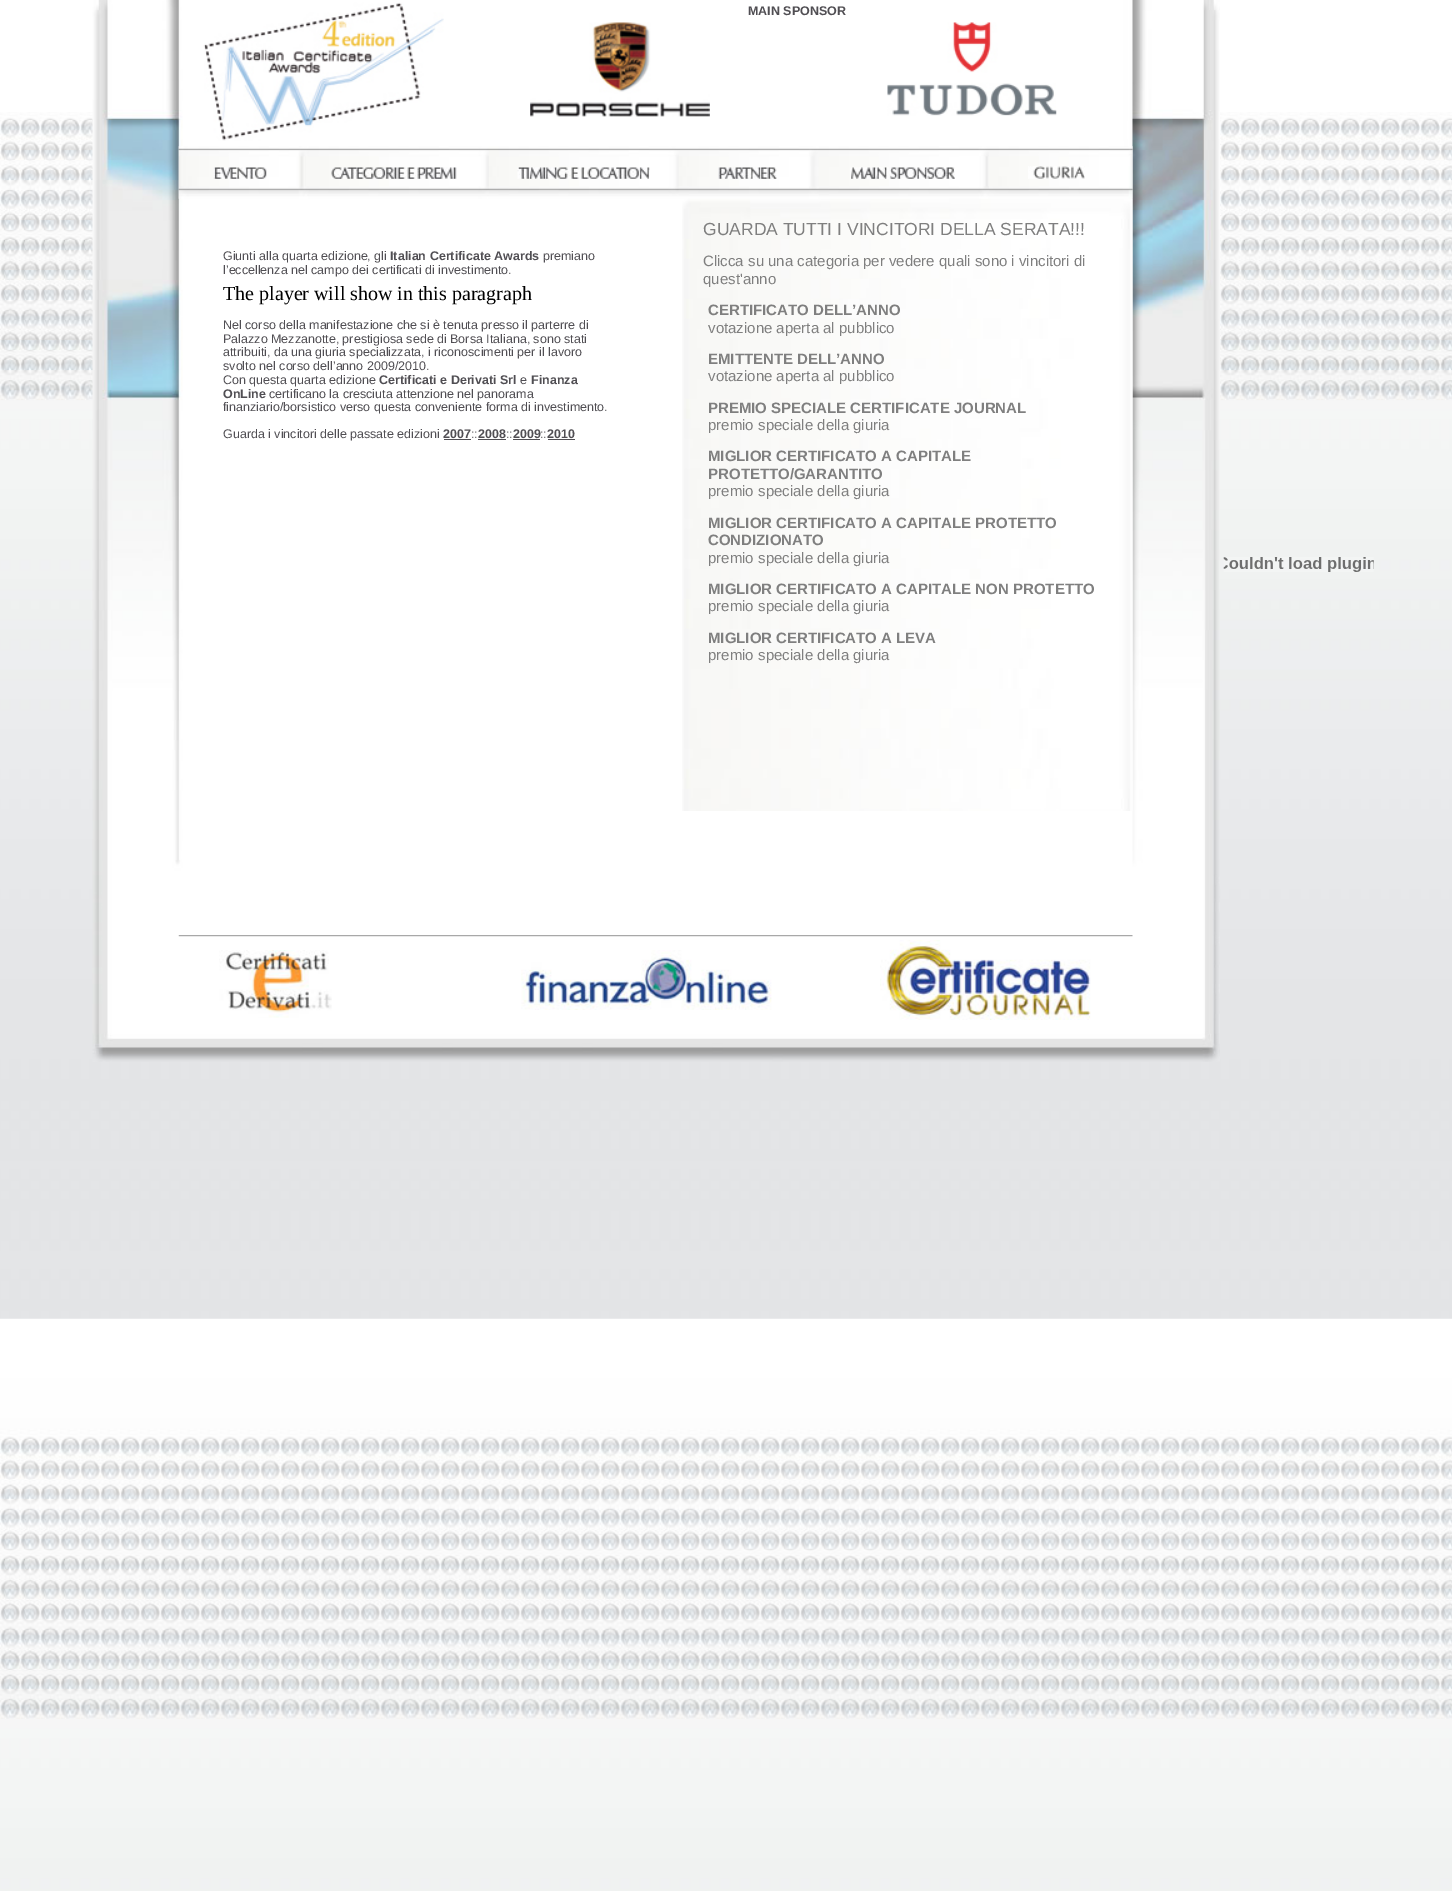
%!PS
<< /PageSize [1452 1891] >> setpagedevice
/co { dup -16 bitshift 255 div exch dup -8 bitshift 255 and 255 div exch 255 and 255 div setrgbcolor } def
/fn { [ exch dup neg 0 0 3 -1 roll 0 0 ] selectfont } def
/tx { co fn moveto show } def
/bx { co rectfill } def
/im { 5 dict begin { /h /w /y /x /name } { exch def } forall
  gsave x y translate w h scale
  w h 8 [w 0 0 h 0 0] name (r) file false 3 colorimage grestore end } def
0 1891 translate 1 -1 scale
4 setmiterlimit
0 0 1452 1891 16#FFFFFF bx
(media/1.raw) 0 112 1452 1779 im
(media/2.raw) 92 0 1128 1062 im
(media/3.raw) 203 2 241 139 im
(media/4.raw) 530 22 180 95 im
(media/5.raw) 887 22 170 94 im
(media/6.raw) 178 146 955 53 im
(media/7.raw) 213 167 54 12 im
(media/8.raw) 331 167 126 12 im
(media/9.raw) 517 167 133 12 im
(media/10.raw) 718 167 59 12 im
(media/11.raw) 850 167 105 12 im
(media/12.raw) 1028 166 57 13 im
444 439 27 1 16#504E53 bx
478 439 28 1 16#504E53 bx
513 439 27 1 16#504E53 bx
548 439 27 1 16#504E53 bx
(media/13.raw) 682 198 451 613 im
(media/14.raw) 178 935 955 2 im
(media/15.raw) 219 950 113 68 im
(media/16.raw) 521 950 251 60 im
(media/17.raw) 880 940 211 80 im
(media/18.raw) 1223 557 151 15 im
(MAIN SPONSOR) 748 15 /LiberationSans-Bold 12.5 16#504E53 tx
(Giunti alla quarta edizione, gli) 223 260 /LiberationSans-Regular 12.5 16#504E53 tx
(Italian Certificate Awards) 390 260 /LiberationSans-Bold 12.5 16#504E53 tx
(premiano) 543 260 /LiberationSans-Regular 12.5 16#504E53 tx
(l’eccellenza nel campo dei certificati di investimento.) 223 274 /LiberationSans-Regular 12.5 16#504E53 tx
(The player will show in this paragraph) 223 300 /LiberationSerif-Regular 20 16#000000 tx
(Nel corso della manifestazione che si è tenuta presso il parterre di) 223 329 /LiberationSans-Regular 12.5 16#504E53 tx
(Palazzo Mezzanotte, prestigiosa sede di Borsa Italiana, sono stati) 223 343 /LiberationSans-Regular 12.5 16#504E53 tx
(attribuiti, da una giuria specializzata, i riconoscimenti per il lavoro) 223 356 /LiberationSans-Regular 12.5 16#504E53 tx
(svolto nel corso dell’anno 2009/2010.) 223 370 /LiberationSans-Regular 12.5 16#504E53 tx
(Con questa quarta edizione) 223 384 /LiberationSans-Regular 12.5 16#504E53 tx
(Certificati e Derivati Srl) 379 384 /LiberationSans-Bold 12.5 16#504E53 tx
(e) 520 384 /LiberationSans-Regular 12.5 16#504E53 tx
(Finanza) 531 384 /LiberationSans-Bold 12.5 16#504E53 tx
(OnLine) 223 398 /LiberationSans-Bold 12.5 16#504E53 tx
(certificano la cresciuta attenzione nel panorama) 269 398 /LiberationSans-Regular 12.5 16#504E53 tx
(finanziario/borsistico verso questa conveniente forma di investimento.) 223 411 /LiberationSans-Regular 12.5 16#504E53 tx
(Guarda i vincitori delle passate edizioni) 223 438 /LiberationSans-Regular 12.5 16#504E53 tx
(2007) 443 438 /LiberationSans-Bold 12.5 16#504E53 tx
(::) 471 438 /LiberationSans-Regular 12.5 16#504E53 tx
(2008) 478 438 /LiberationSans-Bold 12.5 16#504E53 tx
(::) 506 438 /LiberationSans-Regular 12.5 16#504E53 tx
(2009) 513 438 /LiberationSans-Bold 12.5 16#504E53 tx
(::) 540 438 /LiberationSans-Regular 12.5 16#504E53 tx
(2010) 547 438 /LiberationSans-Bold 12.5 16#504E53 tx
(GUARDA TUTTI I VINCITORI DELLA SERATA!!!) 703 235 /LiberationSans-Regular 17.5 16#7F7F7F tx
(Clicca su una categoria per vedere quali sono i vincitori di) 703 266 /LiberationSans-Regular 15 16#7F7F7F tx
(quest'anno) 703 284 /LiberationSans-Regular 15 16#7F7F7F tx
(CERTIFICATO DELL’ANNO) 708 315 /LiberationSans-Bold 15 16#7F7F7F tx
(votazione aperta al pubblico) 708 333 /LiberationSans-Regular 15 16#7F7F7F tx
(EMITTENTE DELL’ANNO) 708 364 /LiberationSans-Bold 15 16#7F7F7F tx
(votazione aperta al pubblico) 708 381 /LiberationSans-Regular 15 16#7F7F7F tx
(PREMIO SPECIALE CERTIFICATE JOURNAL) 708 413 /LiberationSans-Bold 15 16#7F7F7F tx
(premio speciale della giuria) 708 430 /LiberationSans-Regular 15 16#7F7F7F tx
(MIGLIOR CERTIFICATO A CAPITALE) 708 461 /LiberationSans-Bold 15 16#7F7F7F tx
(PROTETTO/GARANTITO) 708 479 /LiberationSans-Bold 15 16#7F7F7F tx
(premio speciale della giuria) 708 496 /LiberationSans-Regular 15 16#7F7F7F tx
(MIGLIOR CERTIFICATO A CAPITALE PROTETTO) 708 528 /LiberationSans-Bold 15 16#7F7F7F tx
(CONDIZIONATO) 708 545 /LiberationSans-Bold 15 16#7F7F7F tx
(premio speciale della giuria) 708 563 /LiberationSans-Regular 15 16#7F7F7F tx
(MIGLIOR CERTIFICATO A CAPITALE NON PROTETTO) 708 594 /LiberationSans-Bold 15 16#7F7F7F tx
(premio speciale della giuria) 708 611 /LiberationSans-Regular 15 16#7F7F7F tx
(MIGLIOR CERTIFICATO A LEVA) 708 643 /LiberationSans-Bold 15 16#7F7F7F tx
(premio speciale della giuria) 708 660 /LiberationSans-Regular 15 16#7F7F7F tx
showpage
